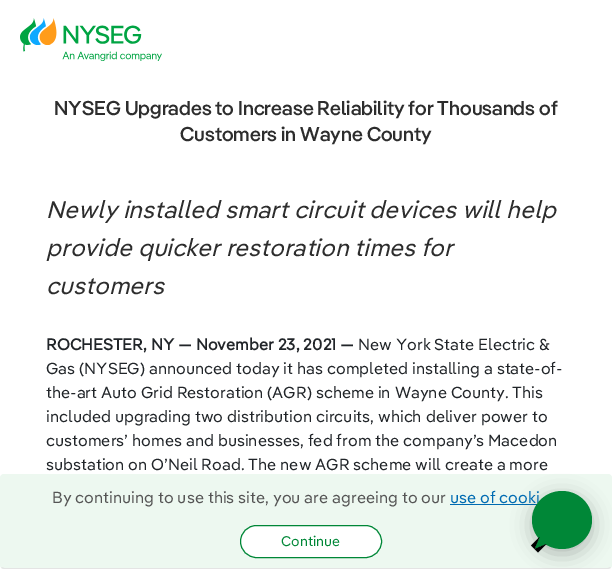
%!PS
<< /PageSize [612 569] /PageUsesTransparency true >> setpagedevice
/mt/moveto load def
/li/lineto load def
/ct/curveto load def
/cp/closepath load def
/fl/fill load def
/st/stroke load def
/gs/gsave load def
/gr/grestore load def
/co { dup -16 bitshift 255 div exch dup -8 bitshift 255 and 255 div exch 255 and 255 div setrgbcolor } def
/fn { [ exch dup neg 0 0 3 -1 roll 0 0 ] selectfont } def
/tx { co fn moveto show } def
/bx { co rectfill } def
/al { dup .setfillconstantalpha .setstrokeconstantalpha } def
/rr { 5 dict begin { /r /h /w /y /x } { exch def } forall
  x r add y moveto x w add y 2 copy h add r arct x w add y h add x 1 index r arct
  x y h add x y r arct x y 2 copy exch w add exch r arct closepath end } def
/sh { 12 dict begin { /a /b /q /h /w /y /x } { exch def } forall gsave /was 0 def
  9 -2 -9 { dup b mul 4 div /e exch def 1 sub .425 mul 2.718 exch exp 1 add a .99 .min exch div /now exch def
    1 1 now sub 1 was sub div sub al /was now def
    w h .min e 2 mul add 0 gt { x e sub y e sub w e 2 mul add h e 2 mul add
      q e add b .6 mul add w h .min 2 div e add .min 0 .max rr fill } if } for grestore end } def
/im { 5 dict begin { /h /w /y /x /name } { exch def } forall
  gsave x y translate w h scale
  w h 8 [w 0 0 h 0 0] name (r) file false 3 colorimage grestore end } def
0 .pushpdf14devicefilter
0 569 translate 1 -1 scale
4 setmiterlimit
0 0 612 569 16#FFFFFF bx
(media/1.raw) 20 18 142 43 im
16#EDF8F0 co
0 474 612 95 4 rr fl
16#E4E4E4 co
610.5 567.5 mt 608 568.5 li 4 568.5 li 1.5 567.5 li st
450 504 87 1 16#006BB2 bx
16#FFFFFF co
240.5 525.5 141 32 16 rr gs fl gr
16#008737 co
st
16#000000 co
532 496 60 58 29 10 .25 sh
(NYSEG Upgrades to Increase Reliability for Thousands of) 54 115 /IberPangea-Medium 20 16#2D2D2D tx
(Customers in Wayne County) 180 141 /IberPangea-Medium 20 16#2D2D2D tx
(Newly installed smart circuit devices will help) 46 218 /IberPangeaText-Italic 24 16#2D2D2D tx
(provide quicker restoration times for) 46 256 /IberPangeaText-Italic 24 16#2D2D2D tx
(customers) 46 294 /IberPangeaText-Italic 24 16#2D2D2D tx
(ROCHESTER, NY — November 23, 2021 —) 46 350 /IberPangeaText-Bold 16 16#212529 tx
(New York State Electric &) 358 350 /IberPangeaText-Regular 16 16#212529 tx
(Gas \(NYSEG\) announced today it has completed installing a state-of-) 46 374 /IberPangeaText-Regular 16 16#212529 tx
(the-art Auto Grid Restoration \(AGR\) scheme in Wayne County. This) 46 398 /IberPangeaText-Regular 16 16#212529 tx
(included upgrading two distribution circuits, which deliver power to) 46 422 /IberPangeaText-Regular 16 16#212529 tx
(customers’ homes and businesses, fed from the company’s Macedon) 46 446 /IberPangeaText-Regular 16 16#212529 tx
(substation on O’Neil Road. The new AGR scheme will create a more) 46 470 /IberPangeaText-Regular 16 16#212529 tx
(By continuing to use this site, you are agreeing to our) 52 503 /IberPangeaText-Regular 16 16#555555 tx
(use of cooki) 450 503 /IberPangeaText-Regular 16 16#006BB2 tx
(Continue) 281 546 /IberPangeaText-Regular 14 16#008737 tx
562 491 mt 578.5 491 592 504 592 520 ct 592 536 578.5 549 562 549 ct 545.5 549 532 536 532 520 ct 532 504 545.5 491 562 491 ct cp fl
539.5 537 mt 546.5 544 li 534.5 549 li cp fl
16#000000 co
546.5 544 mt 538 552.5 li 534.5 549 li cp fl
531 545.5 mt 539.5 537 li 534.5 549 li cp fl
.poppdf14devicefilter showpage
